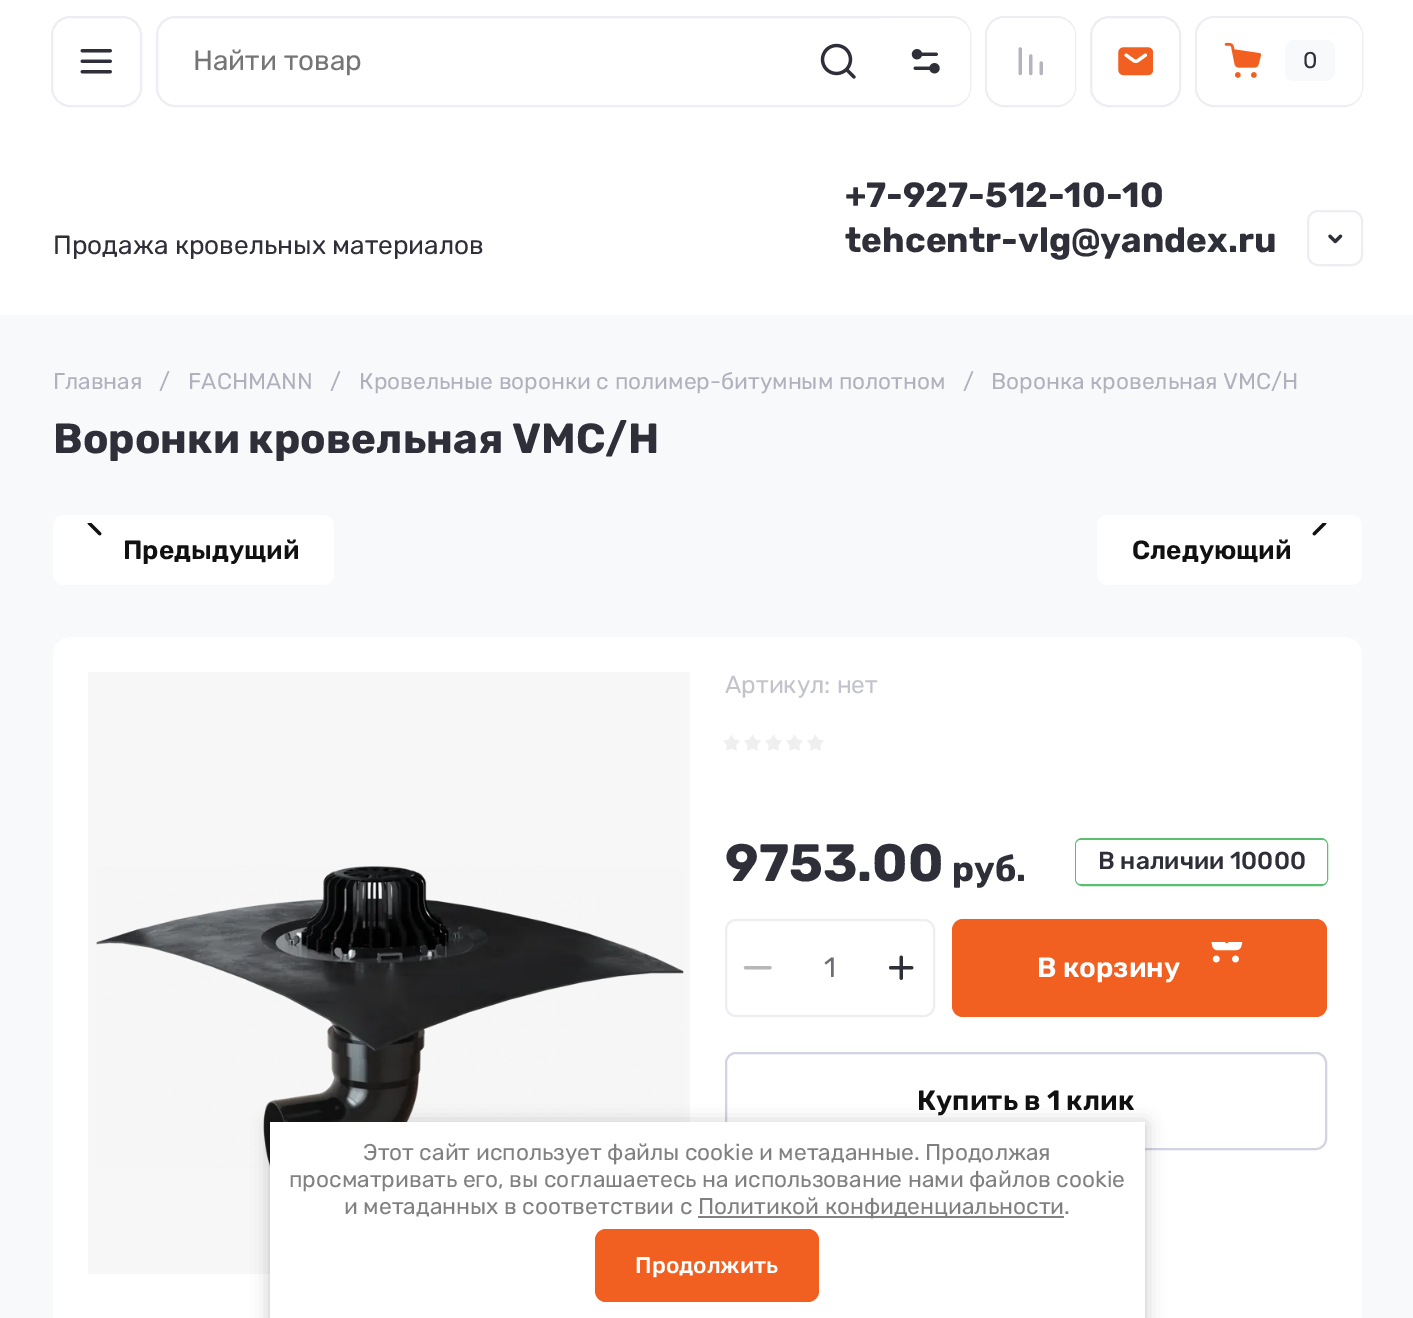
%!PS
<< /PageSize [1413 1318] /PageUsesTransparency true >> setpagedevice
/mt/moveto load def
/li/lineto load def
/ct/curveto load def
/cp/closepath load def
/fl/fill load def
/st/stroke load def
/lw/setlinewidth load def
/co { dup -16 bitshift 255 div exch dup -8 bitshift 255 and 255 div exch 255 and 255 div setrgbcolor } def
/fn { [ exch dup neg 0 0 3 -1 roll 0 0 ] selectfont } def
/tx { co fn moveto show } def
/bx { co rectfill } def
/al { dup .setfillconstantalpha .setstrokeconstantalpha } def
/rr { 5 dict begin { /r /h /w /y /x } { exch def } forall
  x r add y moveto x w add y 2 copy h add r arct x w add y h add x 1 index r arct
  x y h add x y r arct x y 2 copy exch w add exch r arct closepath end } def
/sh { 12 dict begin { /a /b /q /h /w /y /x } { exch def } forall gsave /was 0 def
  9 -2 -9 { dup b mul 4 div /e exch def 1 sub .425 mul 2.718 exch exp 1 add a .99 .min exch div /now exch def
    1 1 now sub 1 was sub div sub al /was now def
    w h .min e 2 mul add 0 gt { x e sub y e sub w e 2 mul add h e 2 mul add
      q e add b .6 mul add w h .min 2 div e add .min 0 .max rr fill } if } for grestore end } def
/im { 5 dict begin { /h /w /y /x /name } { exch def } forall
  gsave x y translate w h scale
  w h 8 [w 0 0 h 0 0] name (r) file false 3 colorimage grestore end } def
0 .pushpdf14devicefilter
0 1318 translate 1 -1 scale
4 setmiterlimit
0 0 1413 1318 16#F8F9FB bx
0 0 1413 315 16#FFFFFF bx
16#EDEDF3 co
2 lw
52 17 89 89 18 rr st
(media/1.raw) 80 49 32 25 im
157 17 813 89 18 rr st
(media/2.raw) 820 43 36 36 im
16#FFFFFF co
882 18 mt 952 18 li 962 18 970 26 970 36 ct 970 87 li 970 97 962 105 952 105 ct 882 105 li cp fl
(media/3.raw) 911 49 29 25 im
16#EDEDF3 co
986 17 89 89 18 rr st
16#FFFFFF co
987 18 88 87 18 rr fl
(media/4.raw) 1018 47 25 29 im
16#EDEDF3 co
1091 17 89 89 18 rr st
(media/5.raw) 1118 47 35 29 im
1196 17 166 89 18 rr st
16#FFFFFF co
1197 18 165 87 18 rr fl
(media/6.raw) 1224 42 38 36 im
16#F8F9FB co
1285 40 50 41 9 rr fl
16#EDEDF3 co
1308 211 54 54 10 rr st
(media/7.raw) 1328 234 15 10 im
16#FFFFFF co
53 515 281 70 11 rr fl
(media/8.raw) 87 523 15 13 im
1097 515 265 70 11 rr fl
(media/9.raw) 1312 523 15 13 im
53 637 1309 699 18 rr fl
(media/10.raw) 96 866 588 302 im
0.03 al
88 672 602 602 16#000000 bx
1 al
(media/11.raw) 723 735 101 16 im
16#5ABF70 co
1076 839 251 46 6 rr st
16#FFFFFF co
1076 840 251 44 5 rr fl
16#EDEDF3 co
726 920 208 96 10 rr st
(media/12.raw) 743 966 29 4 im
(media/13.raw) 889 955 25 25 im
16#F16020 co
952 919 375 98 11 rr fl
(media/14.raw) 1211 942 32 21 im
16#D2D3E0 co
726 1053 600 96 10 rr st
16#000000 co
270 1124 875 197 0 9 .23 sh
270 1122 875 196 16#FFFFFF bx
698 1216 366 2 16#808080 bx
16#F16020 co
595 1229 224 73 11 rr fl
(Найти товар) 193 70 /Rubik-Regular 28 16#757575 tx
(0) 1303 68 /Rubik-Regular 22.75 16#2E2F38 tx
(Продажа кровельных материалов) 53 254 /Rubik-Regular 26.25 16#2E2F38 tx
(+7-927-512-10-10) 845 207 /Rubik-Bold 35 16#2E2F38 tx
(tehcentr-vlg@yandex.ru) 845 252 /Rubik-Bold 35 16#2E2F38 tx
(Главная) 53 389 /Rubik-Regular 22.75 16#B0B1BD tx
(/) 159 389 /Rubik-Regular 22.75 16#B0B1BD tx
(FACHMANN) 188 389 /Rubik-Regular 22.75 16#B0B1BD tx
(/) 330 389 /Rubik-Regular 22.75 16#B0B1BD tx
(Кровельные воронки с полимер-битумным полотном) 359 389 /Rubik-Regular 22.75 16#B0B1BD tx
(/) 963 389 /Rubik-Regular 22.75 16#B0B1BD tx
(Воронка кровельная VMC/H) 991 389 /Rubik-Regular 22.75 16#B0B1BD tx
(Воронки кровельная VMC/H) 53 453 /Rubik-Bold 42 16#2E2F38 tx
(Предыдущий) 123 559 /Rubik-SemiBold 26.25 16#111111 tx
(Следующий) 1132 559 /Rubik-SemiBold 26.25 16#111111 tx
(Артикул: нет) 725 693 /Rubik-Regular 24.5 16#C2C3CB tx
(9753.00) 725 881 /Rubik-Bold 52.5 16#2E2F38 tx
(руб.) 952 881 /Rubik-Bold 35 16#2E2F38 tx
(В наличии 10000) 1098 869 /Rubik-Medium 24.5 16#2E2F38 tx
(1) 824 977 /Rubik-Regular 28 16#6D6D74 tx
(В корзину) 1037 977 /Rubik-SemiBold 28 16#FFFFFF tx
(Купить в 1 клик) 917 1110 /Rubik-SemiBold 28 16#111111 tx
(Этот сайт использует файлы cookie и метаданные. Продолжая) 363 1160 /Rubik-Regular 22.75 16#808080 tx
(просматривать его, вы соглашаетесь на использование нами файлов cookie) 289 1187 /Rubik-Regular 22.75 16#808080 tx
(и метаданных в соответствии с) 344 1214 /Rubik-Regular 22.75 16#808080 tx
(Политикой конфиденциальности.) 698 1214 /Rubik-Regular 22.75 16#808080 tx
(Продолжить) 635 1273 /Rubik-Medium 22.75 16#FFFFFF tx
.poppdf14devicefilter showpage
